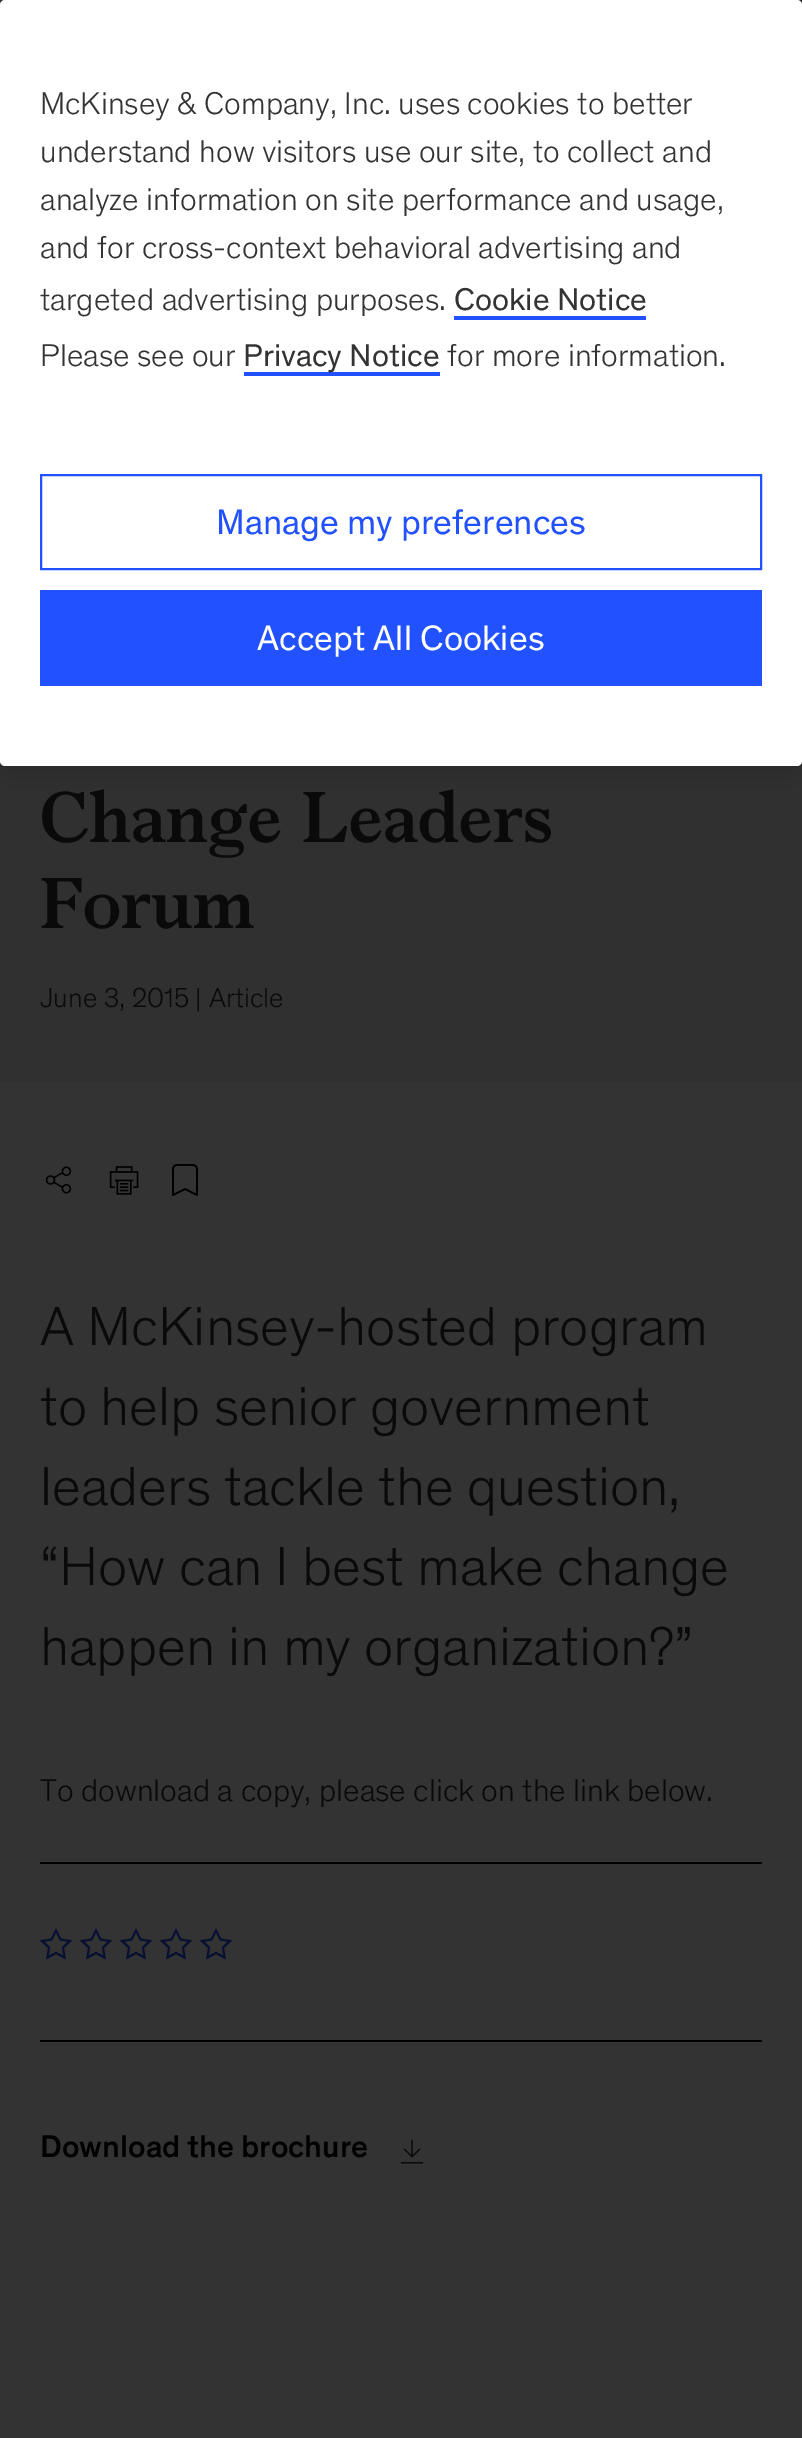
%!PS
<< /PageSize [802 2438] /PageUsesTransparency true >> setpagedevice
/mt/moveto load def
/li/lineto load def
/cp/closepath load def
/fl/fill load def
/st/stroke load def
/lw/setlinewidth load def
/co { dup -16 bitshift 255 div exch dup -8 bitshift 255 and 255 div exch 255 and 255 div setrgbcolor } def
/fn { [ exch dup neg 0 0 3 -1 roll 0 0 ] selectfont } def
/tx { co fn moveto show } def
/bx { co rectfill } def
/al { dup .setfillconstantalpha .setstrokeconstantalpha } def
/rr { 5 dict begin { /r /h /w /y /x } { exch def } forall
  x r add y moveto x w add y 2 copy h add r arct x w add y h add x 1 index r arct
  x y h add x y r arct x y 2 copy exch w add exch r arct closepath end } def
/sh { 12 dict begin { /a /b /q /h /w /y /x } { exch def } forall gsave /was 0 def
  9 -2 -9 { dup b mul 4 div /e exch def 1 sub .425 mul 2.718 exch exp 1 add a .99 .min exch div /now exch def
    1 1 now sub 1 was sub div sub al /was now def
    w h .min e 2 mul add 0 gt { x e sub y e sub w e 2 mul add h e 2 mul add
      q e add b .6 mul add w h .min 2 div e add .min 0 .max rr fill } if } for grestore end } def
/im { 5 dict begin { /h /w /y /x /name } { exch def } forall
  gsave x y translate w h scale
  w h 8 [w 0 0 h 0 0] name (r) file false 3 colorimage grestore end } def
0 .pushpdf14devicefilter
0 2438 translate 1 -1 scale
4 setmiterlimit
0 0 802 2438 16#333333 bx
0 761 802 321 16#303030 bx
16#000000 co
0 0 802 766 5 18 .2 sh
16#FFFFFF co
0 0 802 766 5 rr fl
454 316 192 4 16#2251FF bx
244 372 196 4 16#2251FF bx
2 lw
41 475 720 94 rectstroke
40 590 722 96 16#2251FF bx
(media/1.raw) 45 1166 27 28 im
(media/2.raw) 109 1166 30 29 im
(media/3.raw) 172 1164 26 32 im
40 1862 722 2 16#000000 bx
16#071033 co
2 setlinecap
56 1930.5 mt 60.5 1939.5 li 70 1941 li 63 1947.5 li 64.5 1957.5 li 56 1953 li 47.5 1957.5 li 49 1947.5 li 42 1941 li 51.5 1939.5 li cp st
96 1930.5 mt 100.5 1939.5 li 110 1941 li 103 1947.5 li 104.5 1957.5 li 96 1953 li 87.5 1957.5 li 89 1947.5 li 82 1941 li 91.5 1939.5 li cp st
136 1930.5 mt 140.5 1939.5 li 150 1941 li 143 1947.5 li 144.5 1957.5 li 136 1953 li 127.5 1957.5 li 129 1947.5 li 122 1941 li 131.5 1939.5 li cp st
176 1930.5 mt 180.5 1939.5 li 190 1941 li 183 1947.5 li 184.5 1957.5 li 176 1953 li 167.5 1957.5 li 169 1947.5 li 162 1941 li 171.5 1939.5 li cp st
216 1930.5 mt 220.5 1939.5 li 230 1941 li 223 1947.5 li 224.5 1957.5 li 216 1953 li 207.5 1957.5 li 209 1947.5 li 202 1941 li 211.5 1939.5 li cp st
40 2040 722 2 16#000000 bx
(media/4.raw) 400 2139 24 25 im
(McKinsey & Company, Inc. uses cookies to better) 40 114 /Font-Light 32 16#333333 tx
(understand how visitors use our site, to collect and) 40 162 /Font-Light 32 16#333333 tx
(analyze information on site performance and usage,) 40 210 /Font-Light 32 16#333333 tx
(and for cross-context behavioral advertising and) 40 258 /Font-Light 32 16#333333 tx
(targeted advertising purposes.) 40 310 /Font-Light 32 16#333333 tx
(Cookie Notice) 454 310 /Font-Regular 32 16#333333 tx
(Please see our) 40 366 /Font-Light 32 16#333333 tx
(Privacy Notice) 243 366 /Font-Regular 32 16#333333 tx
(for more information.) 447 366 /Font-Light 32 16#333333 tx
(Manage my preferences) 216 534 /Font-Regular 36 16#2251FF tx
(Accept All Cookies) 257 650 /Font-Regular 36 16#FFFFFF tx
(Change Leaders) 40 842 /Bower-Bold 72 16#0A0A0A tx
(Forum) 40 928 /Bower-Bold 72 16#0A0A0A tx
(June 3, 2015 | Article) 40 1007 /Font-Light 28 16#0A0A0A tx
(A McKinsey-hosted program) 40 1345 /Font-Light 56 16#0A0A0A tx
(to help senior government) 40 1425 /Font-Light 56 16#0A0A0A tx
(leaders tackle the question,) 40 1505 /Font-Light 56 16#0A0A0A tx
(“How can I best make change) 40 1585 /Font-Light 56 16#0A0A0A tx
(happen in my organization?”) 40 1665 /Font-Light 56 16#0A0A0A tx
(To download a copy, please click on the link below.) 40 1801 /Font-Light 32 16#0A0A0A tx
(Download the brochure) 40 2157 /Font-Medium 32 16#000000 tx
.poppdf14devicefilter showpage
